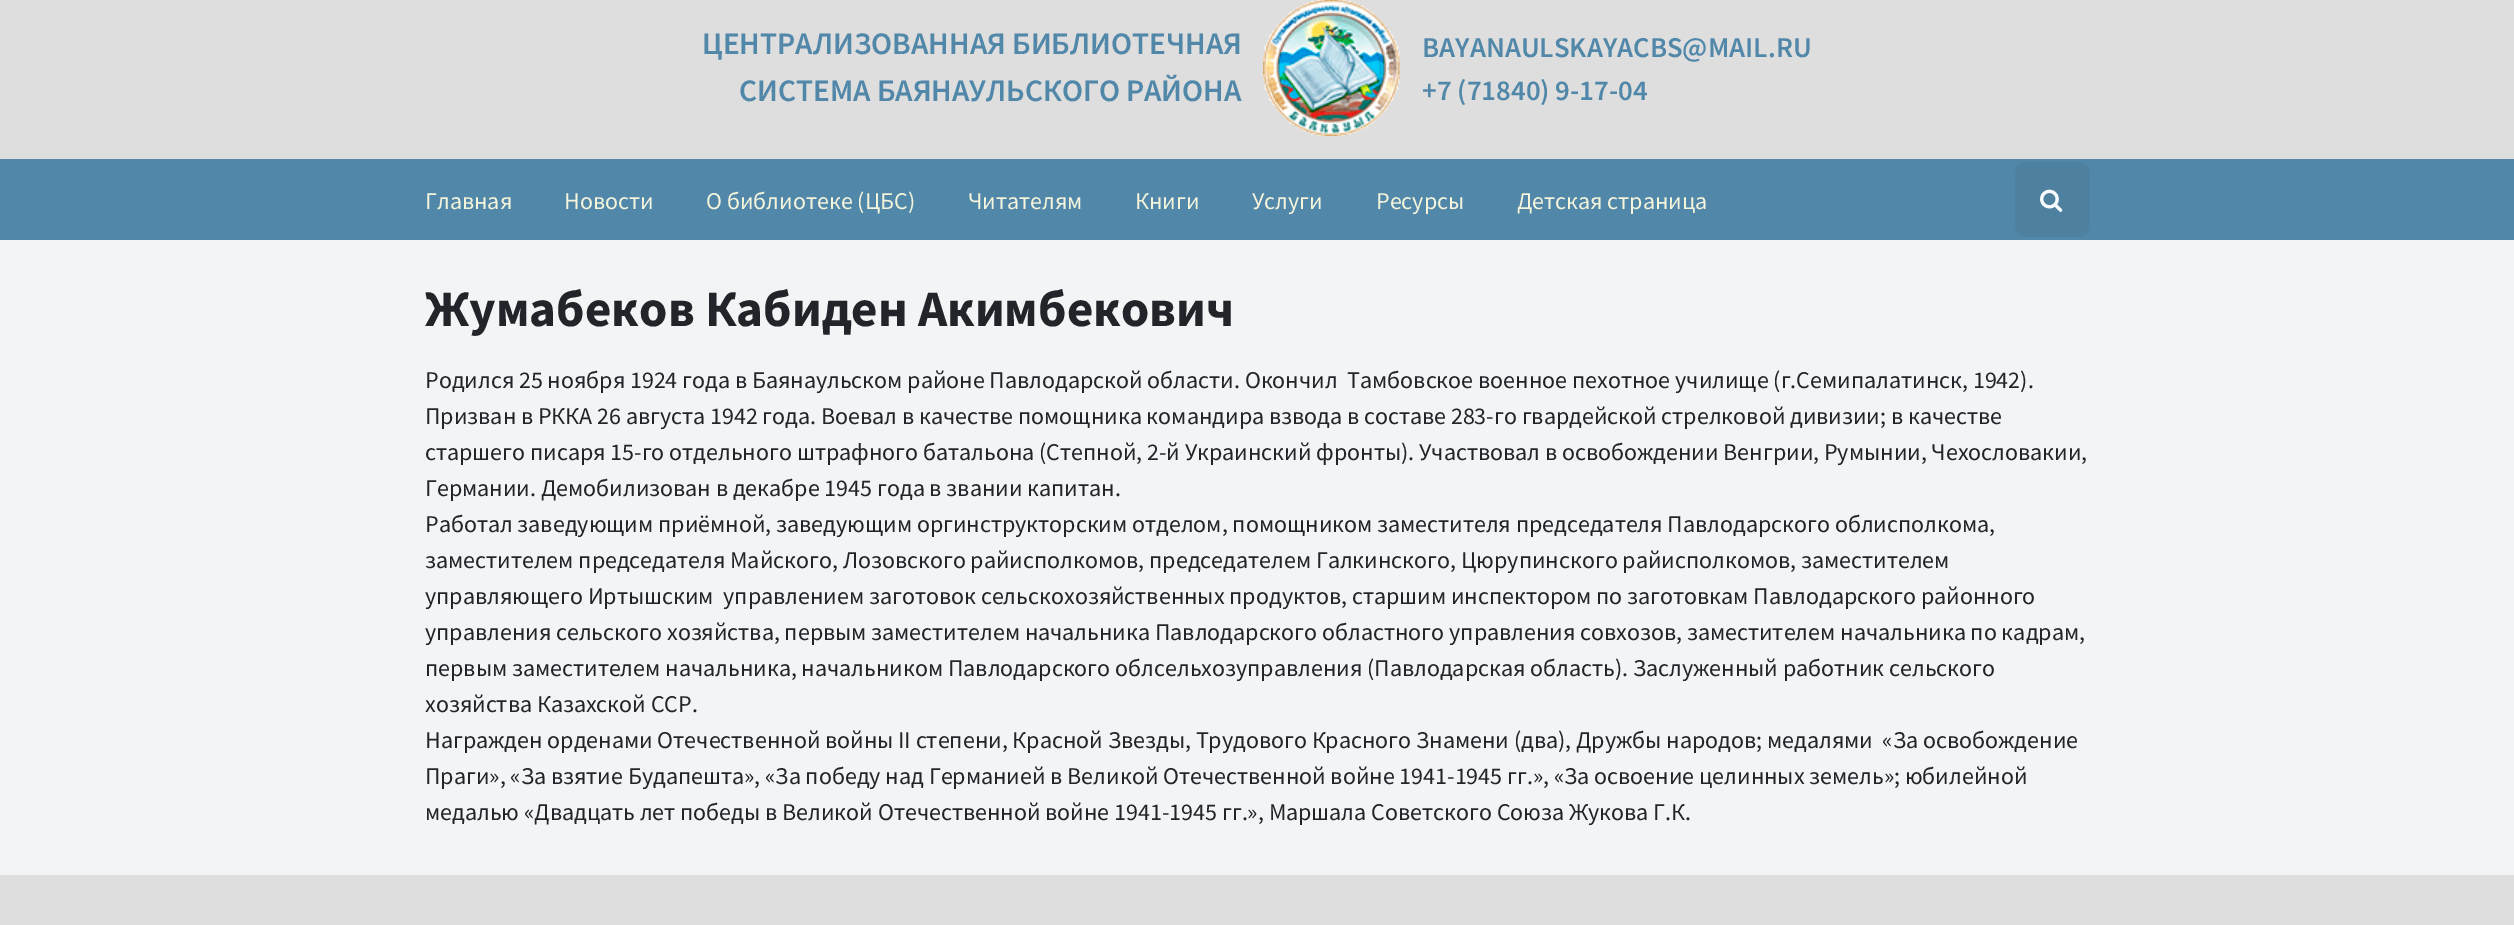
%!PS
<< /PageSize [2514 925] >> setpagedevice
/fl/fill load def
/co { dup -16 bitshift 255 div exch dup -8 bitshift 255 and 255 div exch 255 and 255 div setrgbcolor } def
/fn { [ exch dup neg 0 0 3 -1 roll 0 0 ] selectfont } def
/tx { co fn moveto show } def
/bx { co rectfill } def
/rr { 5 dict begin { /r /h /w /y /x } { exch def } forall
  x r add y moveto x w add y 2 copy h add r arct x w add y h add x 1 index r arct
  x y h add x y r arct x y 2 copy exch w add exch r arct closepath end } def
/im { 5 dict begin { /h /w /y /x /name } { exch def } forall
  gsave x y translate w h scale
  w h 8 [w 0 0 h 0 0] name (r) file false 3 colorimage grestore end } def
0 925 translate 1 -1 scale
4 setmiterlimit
0 0 2514 925 16#F3F4F6 bx
0 0 2514 159 16#DEDEDE bx
(media/1.raw) 1263 0 137 136 im
0 159 2514 81 16#5187A9 bx
16#4E80A0 co
2015 162 75 75 12 rr fl
(media/2.raw) 2040 189 23 23 im
0 875 2514 50 16#DEDEDE bx
(ЦЕНТРАЛИЗОВАННАЯ БИБЛИОТЕЧНАЯ) 702 54 /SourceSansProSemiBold-SemiBold 31.25 16#5187A9 tx
(СИСТЕМА БАЯНАУЛЬСКОГО РАЙОНА) 739 101 /SourceSansProSemiBold-SemiBold 31.25 16#5187A9 tx
(BAYANAULSKAYACBS@MAIL.RU) 1422 57 /SourceSansProSemiBold-SemiBold 28.75 16#5187A9 tx
(+7 \(71840\) 9-17-04) 1422 100 /SourceSansProSemiBold-SemiBold 28.75 16#5187A9 tx
(Главная) 425 209 /SourceSansPro-Regular 24 16#F5F5DC tx
(Новости) 564 209 /SourceSansPro-Regular 24 16#F5F5DC tx
(О библиотеке \(ЦБС\)) 706 209 /SourceSansPro-Regular 24 16#F5F5DC tx
(Читателям) 968 209 /SourceSansPro-Regular 24 16#F5F5DC tx
(Книги) 1135 209 /SourceSansPro-Regular 24 16#F5F5DC tx
(Услуги) 1252 209 /SourceSansPro-Regular 24 16#F5F5DC tx
(Ресурсы) 1376 209 /SourceSansPro-Regular 24 16#F5F5DC tx
(Детская страница) 1517 209 /SourceSansPro-Regular 24 16#F5F5DC tx
(Жумабеков Кабиден Акимбекович) 425 326 /SourceSansPro-Bold 51 16#212529 tx
(Родился 25 ноября 1924 года в Баянаульском районе Павлодарской области. Окончил  Тамбовское военное пехотное училище \(г.Семипалатинск, 1942\).) 425 388 /SourceSansPro-Regular 24 16#212529 tx
(Призван в РККА 26 августа 1942 года. Воевал в качестве помощника командира взвода в составе 283-го гвардейской стрелковой дивизии; в качестве) 425 424 /SourceSansPro-Regular 24 16#212529 tx
(старшего писаря 15-го отдельного штрафного батальона \(Степной, 2-й Украинский фронты\). Участвовал в освобождении Венгрии, Румынии, Чехословакии,) 425 460 /SourceSansPro-Regular 24 16#212529 tx
(Германии. Демобилизован в декабре 1945 года в звании капитан.) 425 496 /SourceSansPro-Regular 24 16#212529 tx
(Работал заведующим приёмной, заведующим оргинструкторским отделом, помощником заместителя председателя Павлодарского облисполкома,) 425 532 /SourceSansPro-Regular 24 16#212529 tx
(заместителем председателя Майского, Лозовского райисполкомов, председателем Галкинского, Цюрупинского райисполкомов, заместителем) 425 568 /SourceSansPro-Regular 24 16#212529 tx
(управляющего Иртышским  управлением заготовок сельскохозяйственных продуктов, старшим инспектором по заготовкам Павлодарского районного) 425 604 /SourceSansPro-Regular 24 16#212529 tx
(управления сельского хозяйства, первым заместителем начальника Павлодарского областного управления совхозов, заместителем начальника по кадрам,) 425 640 /SourceSansPro-Regular 24 16#212529 tx
(первым заместителем начальника, начальником Павлодарского облсельхозуправления \(Павлодарская область\). Заслуженный работник сельского) 425 676 /SourceSansPro-Regular 24 16#212529 tx
(хозяйства Казахской ССР.) 425 712 /SourceSansPro-Regular 24 16#212529 tx
(Награжден орденами Отечественной войны II степени, Красной Звезды, Трудового Красного Знамени \(два\), Дружбы народов; медалями  «За освобождение) 425 748 /SourceSansPro-Regular 24 16#212529 tx
(Праги», «За взятие Будапешта», «За победу над Германией в Великой Отечественной войне 1941-1945 гг.», «За освоение целинных земель»; юбилейной) 425 784 /SourceSansPro-Regular 24 16#212529 tx
(медалью «Двадцать лет победы в Великой Отечественной войне 1941-1945 гг.», Маршала Советского Союза Жукова Г.К.) 425 820 /SourceSansPro-Regular 24 16#212529 tx
showpage
